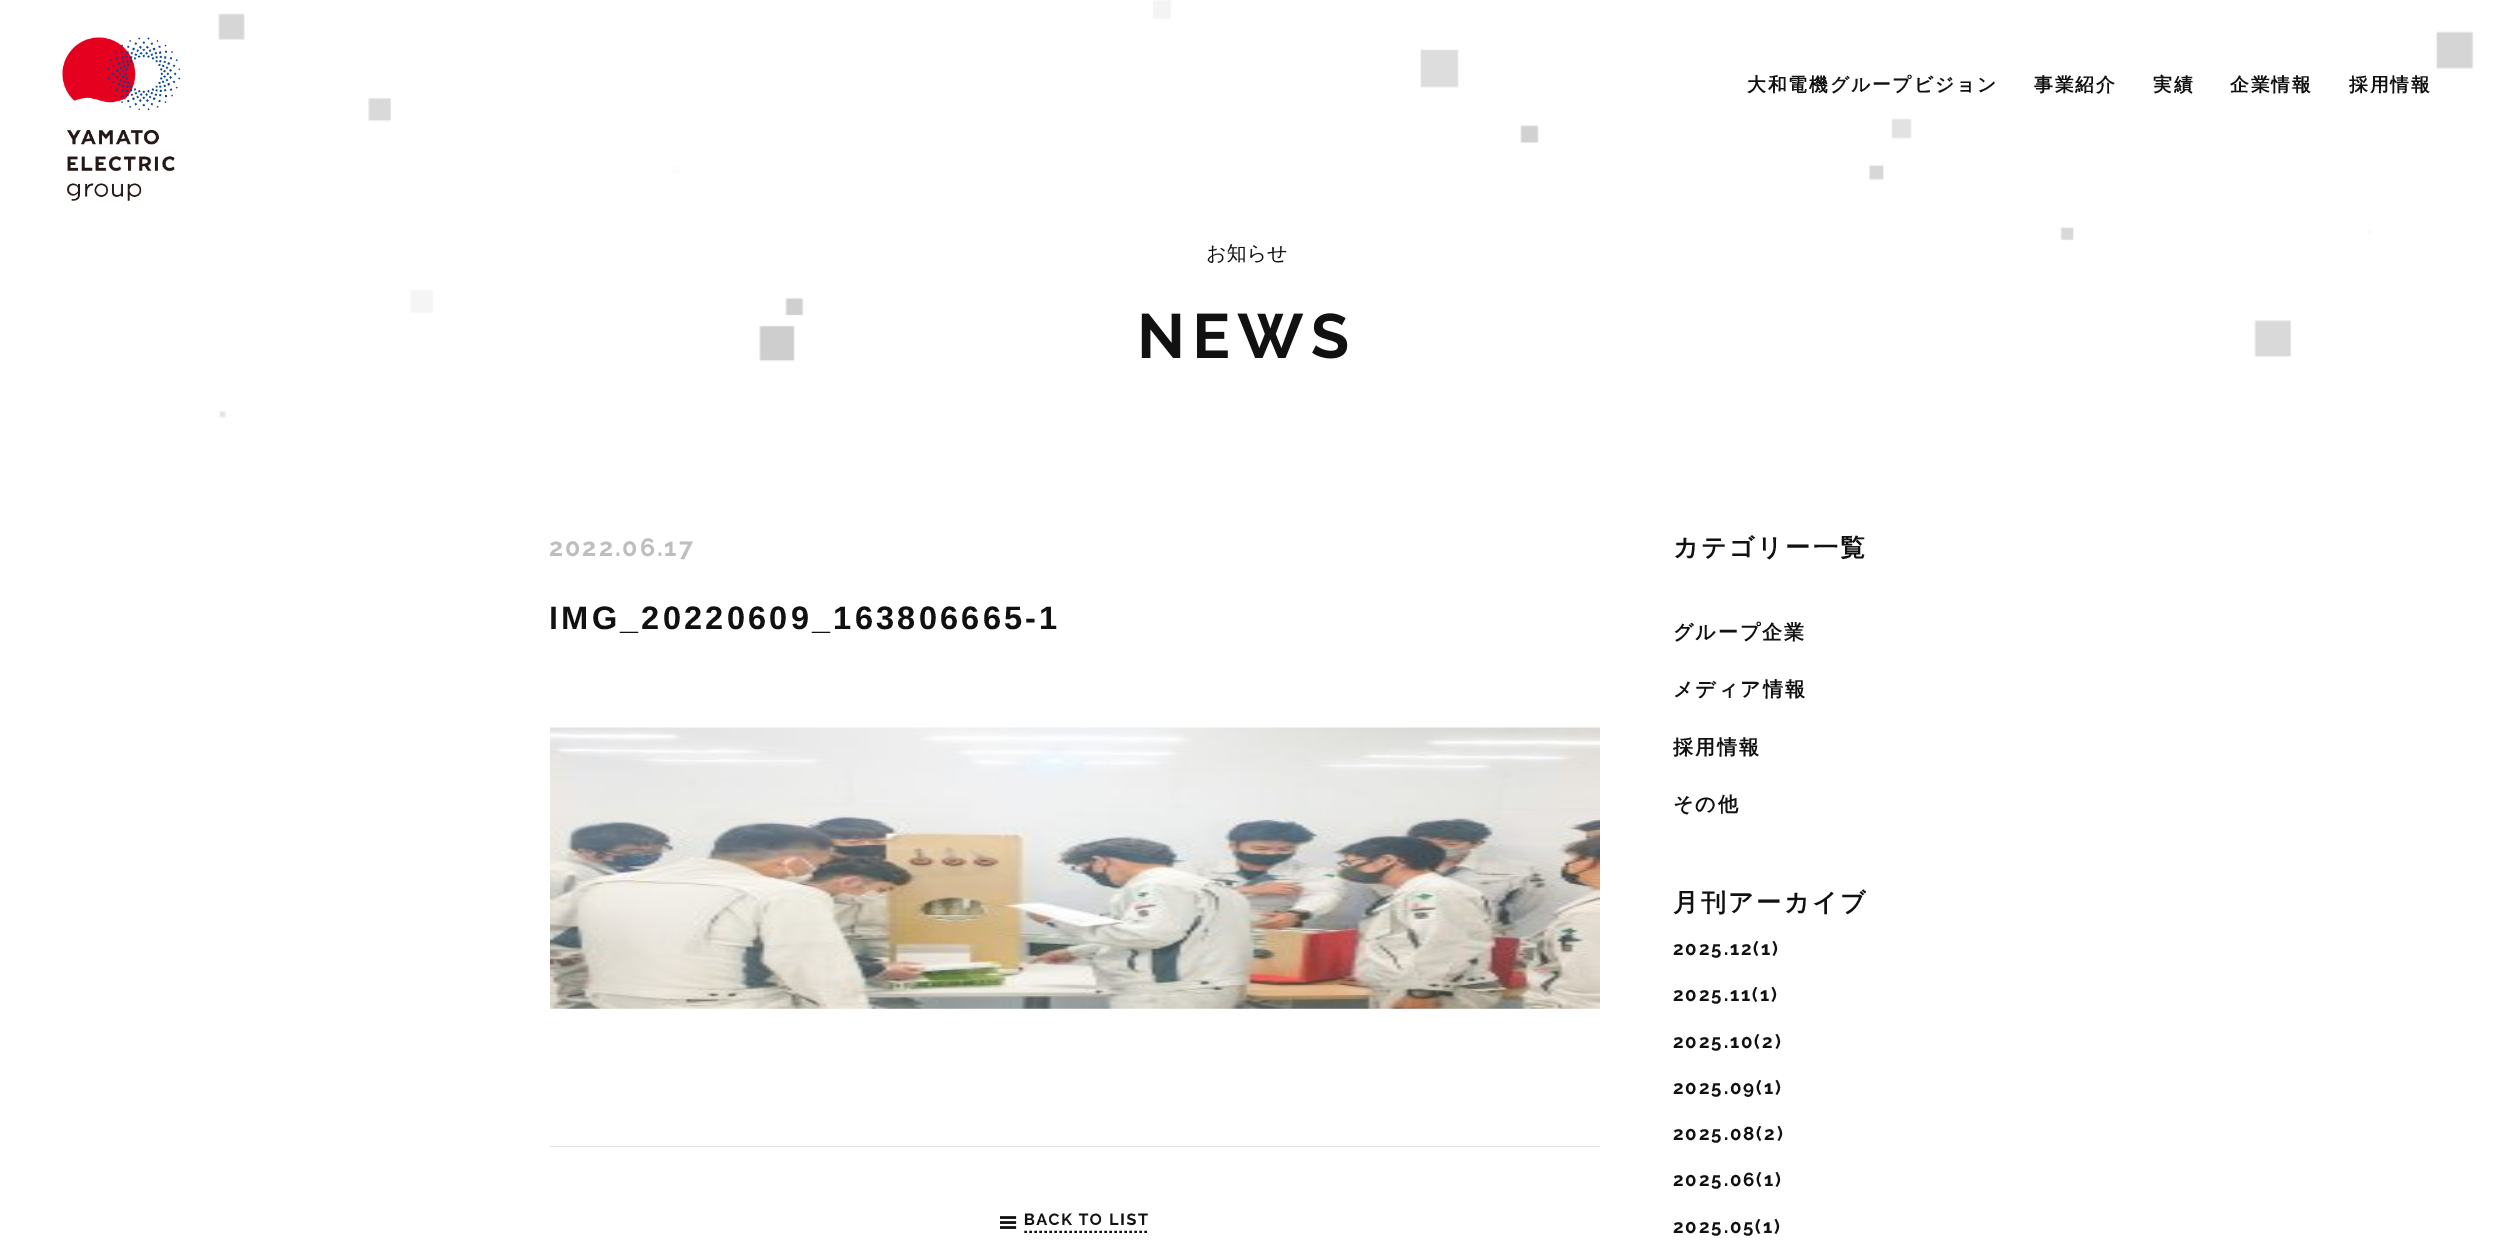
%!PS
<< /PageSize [2493 1251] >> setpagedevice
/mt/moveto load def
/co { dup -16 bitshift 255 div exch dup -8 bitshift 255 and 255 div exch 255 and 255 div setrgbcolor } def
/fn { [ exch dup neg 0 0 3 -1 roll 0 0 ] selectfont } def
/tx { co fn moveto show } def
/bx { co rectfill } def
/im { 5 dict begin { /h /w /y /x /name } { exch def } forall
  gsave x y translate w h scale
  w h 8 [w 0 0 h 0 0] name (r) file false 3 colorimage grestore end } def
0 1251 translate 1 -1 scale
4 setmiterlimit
0 0 2493 1251 16#FFFFFF bx
(media/1.raw) 62 37 119 164 im
(media/3.raw) 550 727 1050 282 im
550 1146 1050 1 16#E0E0E0 bx
(media/4.raw) 1000 1213 148 20 im
(お知らせ) 1206 260 /WenQuanYiZenHei-Bold 20 16#111111 tx
/Raleway-Bold 62.5 fn
1137 358 mt 7.5 0 (NEWS) ashow
(media/2.raw) 218 0 2256 418 im
/WenQuanYiZenHei-Bold 18.75 fn
2349 91 mt 1.9 0 (採用情報) ashow
2230 91 mt 1.9 0 (企業情報) ashow
2153 91 mt 1.9 0 (実績) ashow
2034 91 mt 1.9 0 (事業紹介) ashow
1747 91 mt 1.9 0 (大和電機グループビジョン) ashow
/Raleway-Bold 25 fn
16#BEBEBE co
549 556 mt 2 0 (2022.06.17) ashow
/LiberationSans-Bold 32.5 fn
16#111111 co
549 629 mt 3.25 0 (IMG_20220609_163806665-1) ashow
/WenQuanYiZenHei-Bold 25 fn
1673 556 mt 2.5 0 (カテゴリー一覧) ashow
/WenQuanYiZenHei-Bold 20 fn
1673 639 mt 2 0 (グループ企業) ashow
1673 696 mt 2 0 (メディア情報) ashow
1673 754 mt 2 0 (採用情報) ashow
1673 811 mt 2 0 (その他) ashow
/WenQuanYiZenHei-Bold 25 fn
1673 911 mt 2.5 0 (月刊アーカイブ) ashow
/Raleway-Bold 18.75 fn
1673 955 mt 1.9 0 (2025.12\(1\)) ashow
1673 1001 mt 1.9 0 (2025.11\(1\)) ashow
1673 1048 mt 1.9 0 (2025.10\(2\)) ashow
1673 1094 mt 1.9 0 (2025.09\(1\)) ashow
1673 1140 mt 1.9 0 (2025.08\(2\)) ashow
1673 1186 mt 1.9 0 (2025.06\(1\)) ashow
1673 1233 mt 1.9 0 (2025.05\(1\)) ashow
showpage
